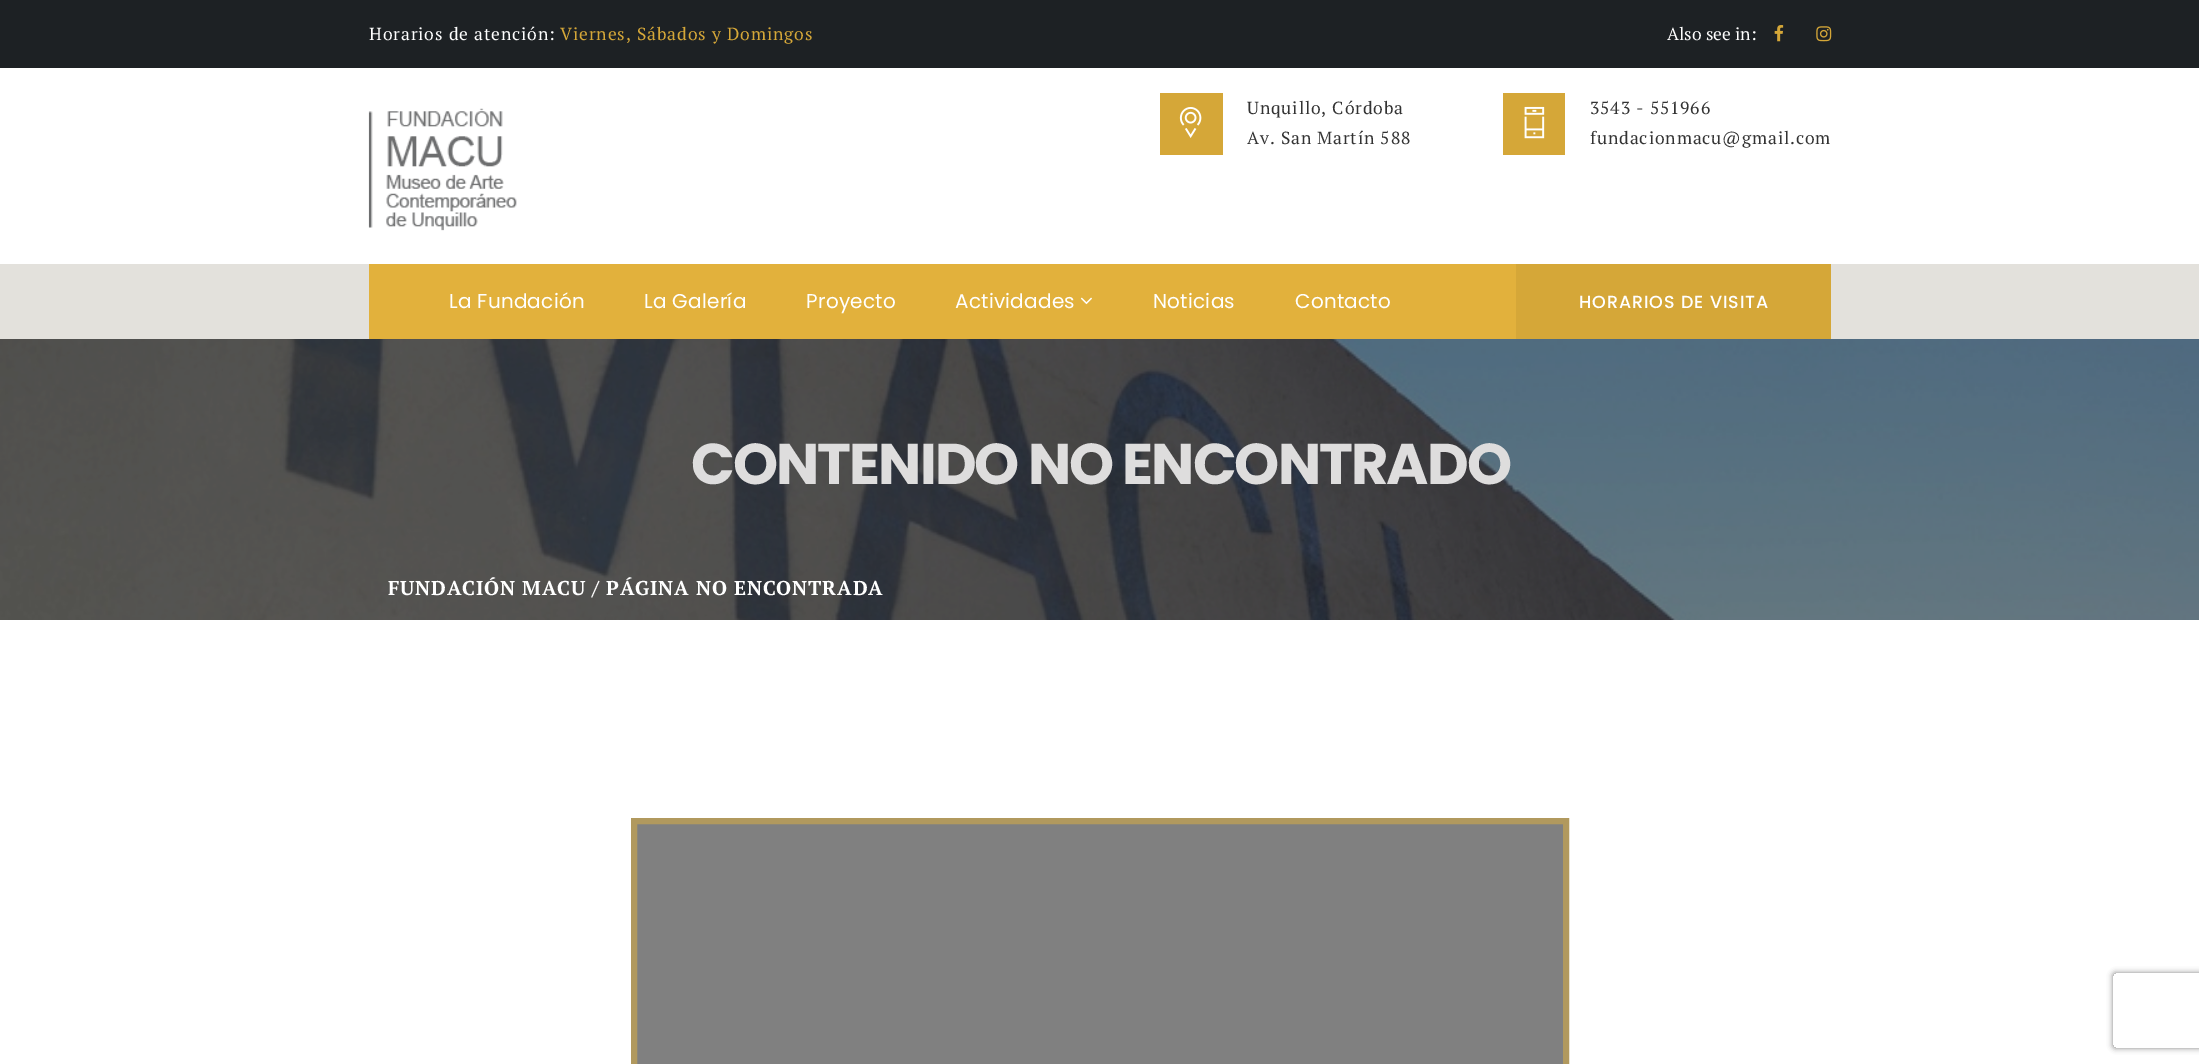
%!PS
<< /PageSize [2199 1064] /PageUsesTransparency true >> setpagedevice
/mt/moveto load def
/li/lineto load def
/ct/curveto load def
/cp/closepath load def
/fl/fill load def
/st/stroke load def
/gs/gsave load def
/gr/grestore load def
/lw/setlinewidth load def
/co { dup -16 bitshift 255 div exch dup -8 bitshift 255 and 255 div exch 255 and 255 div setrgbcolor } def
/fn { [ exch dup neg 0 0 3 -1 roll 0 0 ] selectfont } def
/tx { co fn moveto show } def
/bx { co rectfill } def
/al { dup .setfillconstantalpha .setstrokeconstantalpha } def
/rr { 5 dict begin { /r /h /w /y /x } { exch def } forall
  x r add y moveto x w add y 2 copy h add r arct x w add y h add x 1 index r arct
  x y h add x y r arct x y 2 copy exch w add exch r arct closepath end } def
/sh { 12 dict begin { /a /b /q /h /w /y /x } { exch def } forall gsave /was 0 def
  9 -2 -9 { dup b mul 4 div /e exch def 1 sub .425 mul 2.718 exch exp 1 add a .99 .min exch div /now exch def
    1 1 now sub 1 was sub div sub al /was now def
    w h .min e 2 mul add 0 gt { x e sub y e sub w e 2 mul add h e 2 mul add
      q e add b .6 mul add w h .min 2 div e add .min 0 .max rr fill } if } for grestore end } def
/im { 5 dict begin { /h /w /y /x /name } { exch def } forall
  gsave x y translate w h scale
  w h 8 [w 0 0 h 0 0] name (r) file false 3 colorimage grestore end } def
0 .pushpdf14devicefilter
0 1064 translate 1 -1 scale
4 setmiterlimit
0 0 2199 1064 16#FFFFFF bx
0 0 2199 68 16#1D2124 bx
(media/1.raw) 1774 25 10 17 im
(media/2.raw) 1816 26 16 16 im
(media/3.raw) 368 108 149 123 im
1160 93 63 62 16#D5A738 bx
(media/4.raw) 1179 107 23 31 im
1503 93 62 62 16#D5A738 bx
(media/5.raw) 1524 106 21 33 im
0 264 2199 75 16#E3E1DC bx
369 264 1147 75 16#E2B13C bx
(media/6.raw) 1080 297 12 8 im
1516 264 315 75 16#D5A738 bx
(media/7.raw) 0 339 2199 281 im
16#808080 co
634 821 mt 1566 821 li 1566 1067 li 634 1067 li cp gs fl gr
16#B1995E co
6 lw
st
gs
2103 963 mt 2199 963 li 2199 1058 li 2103 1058 li cp 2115.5 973 mt 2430.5 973 li 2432 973 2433 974 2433 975.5 ct 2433 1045.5 li 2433 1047 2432 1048 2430.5 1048 ct 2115.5 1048 li 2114 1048 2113 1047 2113 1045.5 ct 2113 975.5 li 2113 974 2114 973 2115.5 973 ct cp eoclip newpath
16#808080 co
2113 973 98 75 2.5 3 1 sh
gr
/PTSerif-Regular 17.5 fn
16#FFFFFF co
369 40 mt .9 0 (Horarios de atención:) ashow
16#D5A738 co
560 40 mt .9 0 (Viernes, Sábados y Domingos) ashow
(Also see in:) 1667 40 /PTSerif-Regular 17.5 16#FFFFFF tx
16#333333 co
1247 114 mt .9 0 (Unquillo, Córdoba) ashow
1247 144 mt .9 0 (Av. San Martín 588) ashow
1590 114 mt .9 0 (3543 - 551966) ashow
1590 144 mt .9 0 (fundacionmacu@gmail.com) ashow
/Poppins-Regular 20 fn
16#FFFFFF co
449 308 mt .25 0 (La Fundación) ashow
644 308 mt .25 0 (La Galería) ashow
806 308 mt .25 0 (Proyecto) ashow
955 308 mt .25 0 (Actividades) ashow
1153 308 mt .25 0 (Noticias) ashow
1295 308 mt .25 0 (Contacto) ashow
/Poppins-Medium 17.5 fn
1579 308 mt .9 0 (HORARIOS DE VISITA) ashow
/Poppins-Bold 57.5 fn
16#DEDDDD co
691 484 mt -2 0 (CONTENIDO NO ENCONTRADO) ashow
/PTSerif-Bold 20 fn
16#FFFFFF co
388 595 mt .8 0 (FUNDACIÓN MACU / PÁGINA NO ENCONTRADA) ashow
.poppdf14devicefilter showpage
